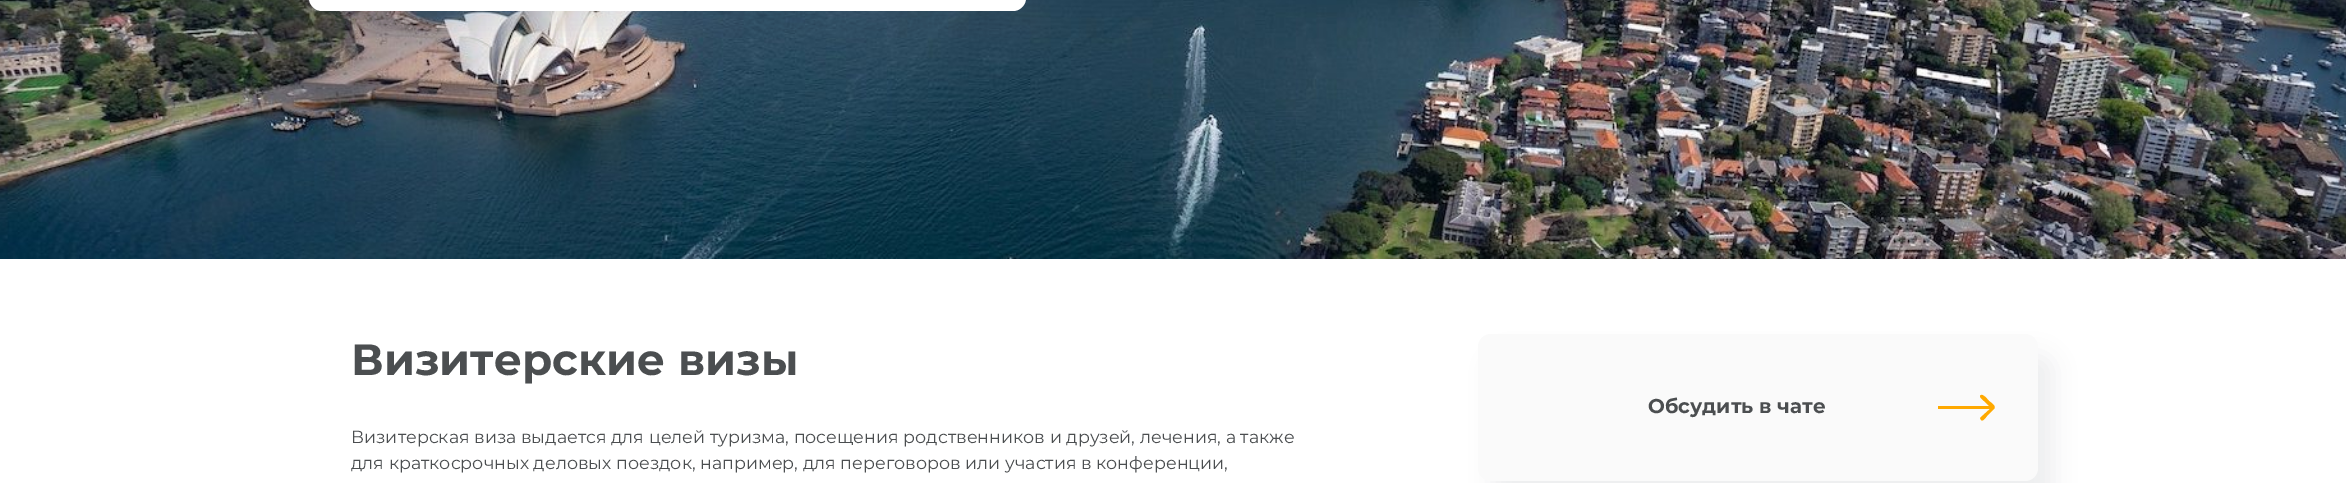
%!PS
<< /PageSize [2346 483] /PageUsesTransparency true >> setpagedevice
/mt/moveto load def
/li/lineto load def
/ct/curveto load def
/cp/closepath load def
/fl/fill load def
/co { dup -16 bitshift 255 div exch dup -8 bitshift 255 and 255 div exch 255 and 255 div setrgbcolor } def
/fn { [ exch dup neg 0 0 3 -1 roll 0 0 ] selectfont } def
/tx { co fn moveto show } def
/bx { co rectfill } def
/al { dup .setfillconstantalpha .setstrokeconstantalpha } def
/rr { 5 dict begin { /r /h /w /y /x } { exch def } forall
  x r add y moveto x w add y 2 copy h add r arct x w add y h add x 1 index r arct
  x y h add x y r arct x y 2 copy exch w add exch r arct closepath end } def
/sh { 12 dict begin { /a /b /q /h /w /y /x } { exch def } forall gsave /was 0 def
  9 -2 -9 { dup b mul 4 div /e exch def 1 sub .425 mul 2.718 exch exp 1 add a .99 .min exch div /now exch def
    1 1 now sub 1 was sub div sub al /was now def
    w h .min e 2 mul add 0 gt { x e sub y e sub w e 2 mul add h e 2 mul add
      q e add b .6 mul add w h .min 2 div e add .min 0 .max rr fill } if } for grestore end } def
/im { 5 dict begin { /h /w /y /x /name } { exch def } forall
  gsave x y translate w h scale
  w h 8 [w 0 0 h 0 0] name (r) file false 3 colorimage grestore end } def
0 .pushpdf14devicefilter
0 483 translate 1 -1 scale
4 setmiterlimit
0 0 2346 483 16#FFFFFF bx
(media/1.raw) 0 0 2346 259 im
16#485A67 co
324 -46 717 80 13 11 .1 sh
16#FFFFFF co
309 -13 mt 1026 -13 li 1026 -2 li 1026 5 1020 11 1013 11 ct 322 11 li 315 11 309 5 309 -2 ct cp fl
16#485A67 co
1493 356 560 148 13 11 .1 sh
16#FAFAFA co
1478 334 560 147 13 rr fl
16#FFA900 co
1994 409 mt 1997 406 1990 402 1989 401 ct 1988 400 1982 392 1980 396 ct 1980 398 1983 400 1984 401 ct 1991 408 li 1980 418 li 1981 420 li 1983 422 1986 417 1987 416 ct cp 1938 409 mt 1993 409 li 1993 406 li 1938 406 li cp fl
(Визитерские визы) 351 375 /Montserrat-Bold 43.75 16#4B4E50 tx
(Визитерская виза выдается для целей туризма, посещения родственников и друзей, лечения, а также) 351 443 /Montserrat-Regular 17.5 16#4B4E50 tx
(для краткосрочных деловых поездок, например, для переговоров или участия в конференции,) 351 469 /Montserrat-Regular 17.5 16#4B4E50 tx
(Обсудить в чате) 1648 413 /Montserrat-Bold 20 16#4B4E50 tx
.poppdf14devicefilter showpage
